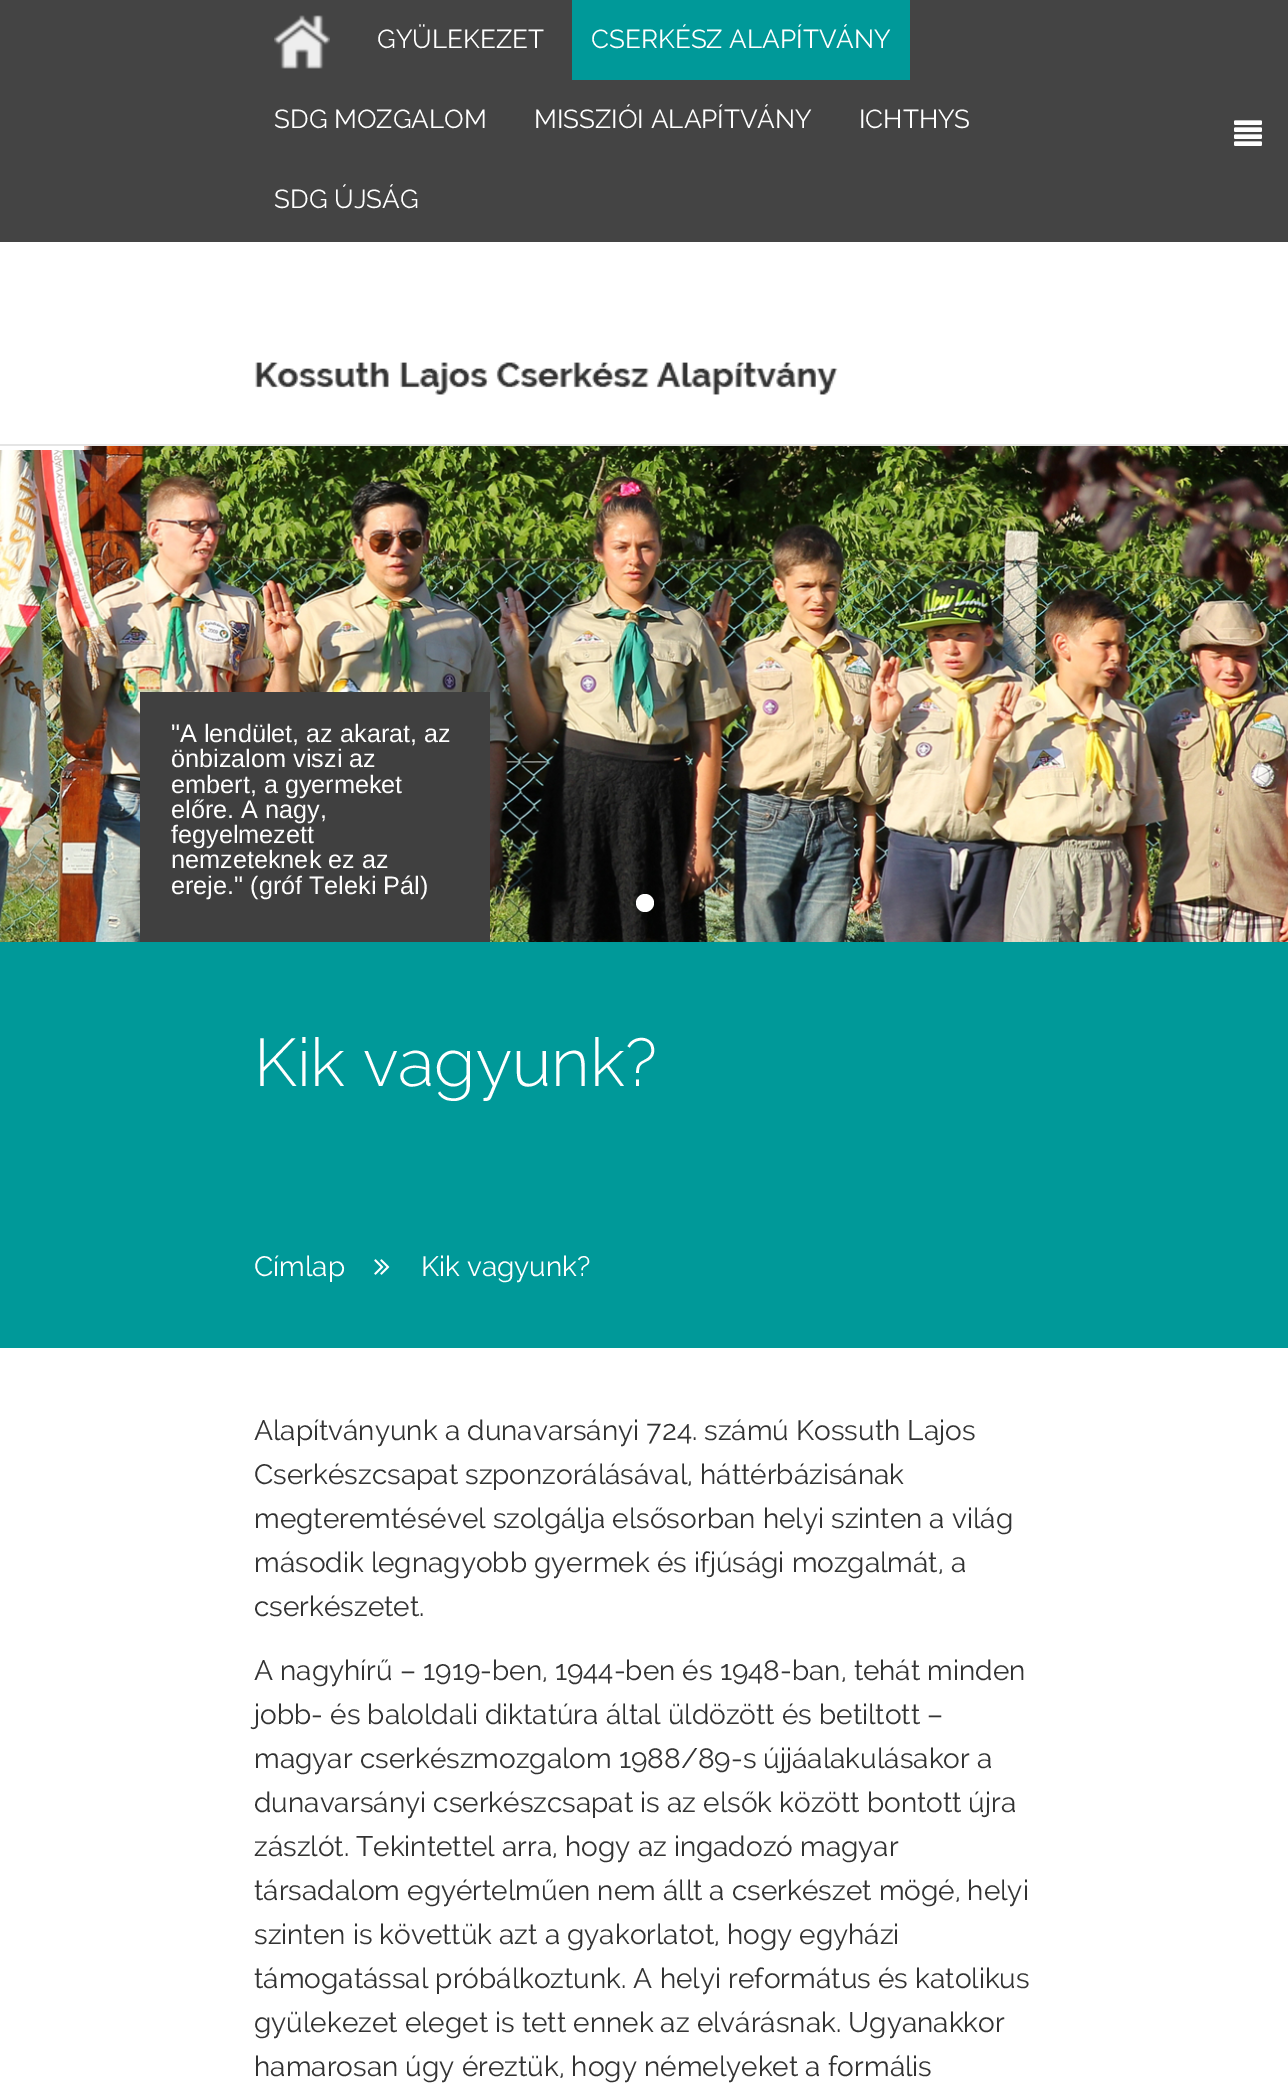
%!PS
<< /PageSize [1288 2088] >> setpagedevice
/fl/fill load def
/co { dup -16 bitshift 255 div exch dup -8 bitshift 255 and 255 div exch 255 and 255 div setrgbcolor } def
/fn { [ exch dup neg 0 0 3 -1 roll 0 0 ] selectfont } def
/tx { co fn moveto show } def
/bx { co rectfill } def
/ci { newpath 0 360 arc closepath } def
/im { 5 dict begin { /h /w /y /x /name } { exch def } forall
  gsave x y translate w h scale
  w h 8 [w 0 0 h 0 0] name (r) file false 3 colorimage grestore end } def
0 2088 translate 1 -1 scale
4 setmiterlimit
0 0 1288 2088 16#FFFFFF bx
0 0 1288 242 16#444444 bx
(media/1.raw) 274 15 56 54 im
572 0 338 80 16#009999 bx
0 444 1288 2 16#E5E5E5 bx
(media/2.raw) 255 362 583 33 im
(media/3.raw) 1234 120 28 26 im
(media/5.raw) 0 446 1288 496 im
0 446 84 4 16#FFFFFF bx
(media/4.raw) 84 446 8 4 im
140 692 350 250 16#404040 bx
16#FFFFFF co
645 903 9 ci fl
0 942 1288 406 16#009999 bx
(media/6.raw) 374 1259 16 16 im
(GYÜLEKEZET) 377 48 /Raleway-Regular 26 16#FFFFFF tx
(CSERKÉSZ ALAPÍTVÁNY) 591 48 /Raleway-Regular 26 16#FFFFFF tx
(SDG MOZGALOM) 274 128 /Raleway-Regular 26 16#FFFFFF tx
(MISSZIÓI ALAPÍTVÁNY) 534 128 /Raleway-Regular 26 16#FFFFFF tx
(ICHTHYS) 859 128 /Raleway-Regular 26 16#FFFFFF tx
(SDG ÚJSÁG) 274 208 /Raleway-Regular 26 16#FFFFFF tx
("A lendület, az akarat, az) 171 742 /LiberationSans-Regular 25.25 16#FFFFFF tx
(önbizalom viszi az) 171 767 /LiberationSans-Regular 25.25 16#FFFFFF tx
(embert, a gyermeket) 171 793 /LiberationSans-Regular 25.25 16#FFFFFF tx
(előre. A nagy,) 171 818 /LiberationSans-Regular 25.25 16#FFFFFF tx
(fegyelmezett) 171 843 /LiberationSans-Regular 25.25 16#FFFFFF tx
(nemzeteknek ez az) 171 868 /LiberationSans-Regular 25.25 16#FFFFFF tx
(ereje." \(gróf Teleki Pál\)) 171 894 /LiberationSans-Regular 25.25 16#FFFFFF tx
(Kik vagyunk?) 254 1086 /Raleway-Light 67.25 16#FFFFFF tx
(Címlap) 254 1276 /Raleway-Regular 28 16#FFFFFF tx
(Kik vagyunk?) 421 1276 /Raleway-Regular 28 16#FFFFFF tx
(Alapítványunk a dunavarsányi 724. számú Kossuth Lajos) 254 1440 /Raleway-Regular 28 16#333333 tx
(Cserkészcsapat szponzorálásával, háttérbázisának) 254 1484 /Raleway-Regular 28 16#333333 tx
(megteremtésével szolgálja elsősorban helyi szinten a világ) 254 1528 /Raleway-Regular 28 16#333333 tx
(második legnagyobb gyermek és ifjúsági mozgalmát, a) 254 1572 /Raleway-Regular 28 16#333333 tx
(cserkészetet.) 254 1616 /Raleway-Regular 28 16#333333 tx
(A nagyhírű – 1919-ben, 1944-ben és 1948-ban, tehát minden) 254 1680 /Raleway-Regular 28 16#333333 tx
(jobb- és baloldali diktatúra által üldözött és betiltott –) 254 1724 /Raleway-Regular 28 16#333333 tx
(magyar cserkészmozgalom 1988/89-s újjáalakulásakor a) 254 1768 /Raleway-Regular 28 16#333333 tx
(dunavarsányi cserkészcsapat is az elsők között bontott újra) 254 1812 /Raleway-Regular 28 16#333333 tx
(zászlót. Tekintettel arra, hogy az ingadozó magyar) 254 1856 /Raleway-Regular 28 16#333333 tx
(társadalom egyértelműen nem állt a cserkészet mögé, helyi) 254 1900 /Raleway-Regular 28 16#333333 tx
(szinten is követtük azt a gyakorlatot, hogy egyházi) 254 1944 /Raleway-Regular 28 16#333333 tx
(támogatással próbálkoztunk. A helyi református és katolikus) 254 1988 /Raleway-Regular 28 16#333333 tx
(gyülekezet eleget is tett ennek az elvárásnak. Ugyanakkor) 254 2032 /Raleway-Regular 28 16#333333 tx
(hamarosan úgy éreztük, hogy némelyeket a formális) 254 2076 /Raleway-Regular 28 16#333333 tx
showpage
